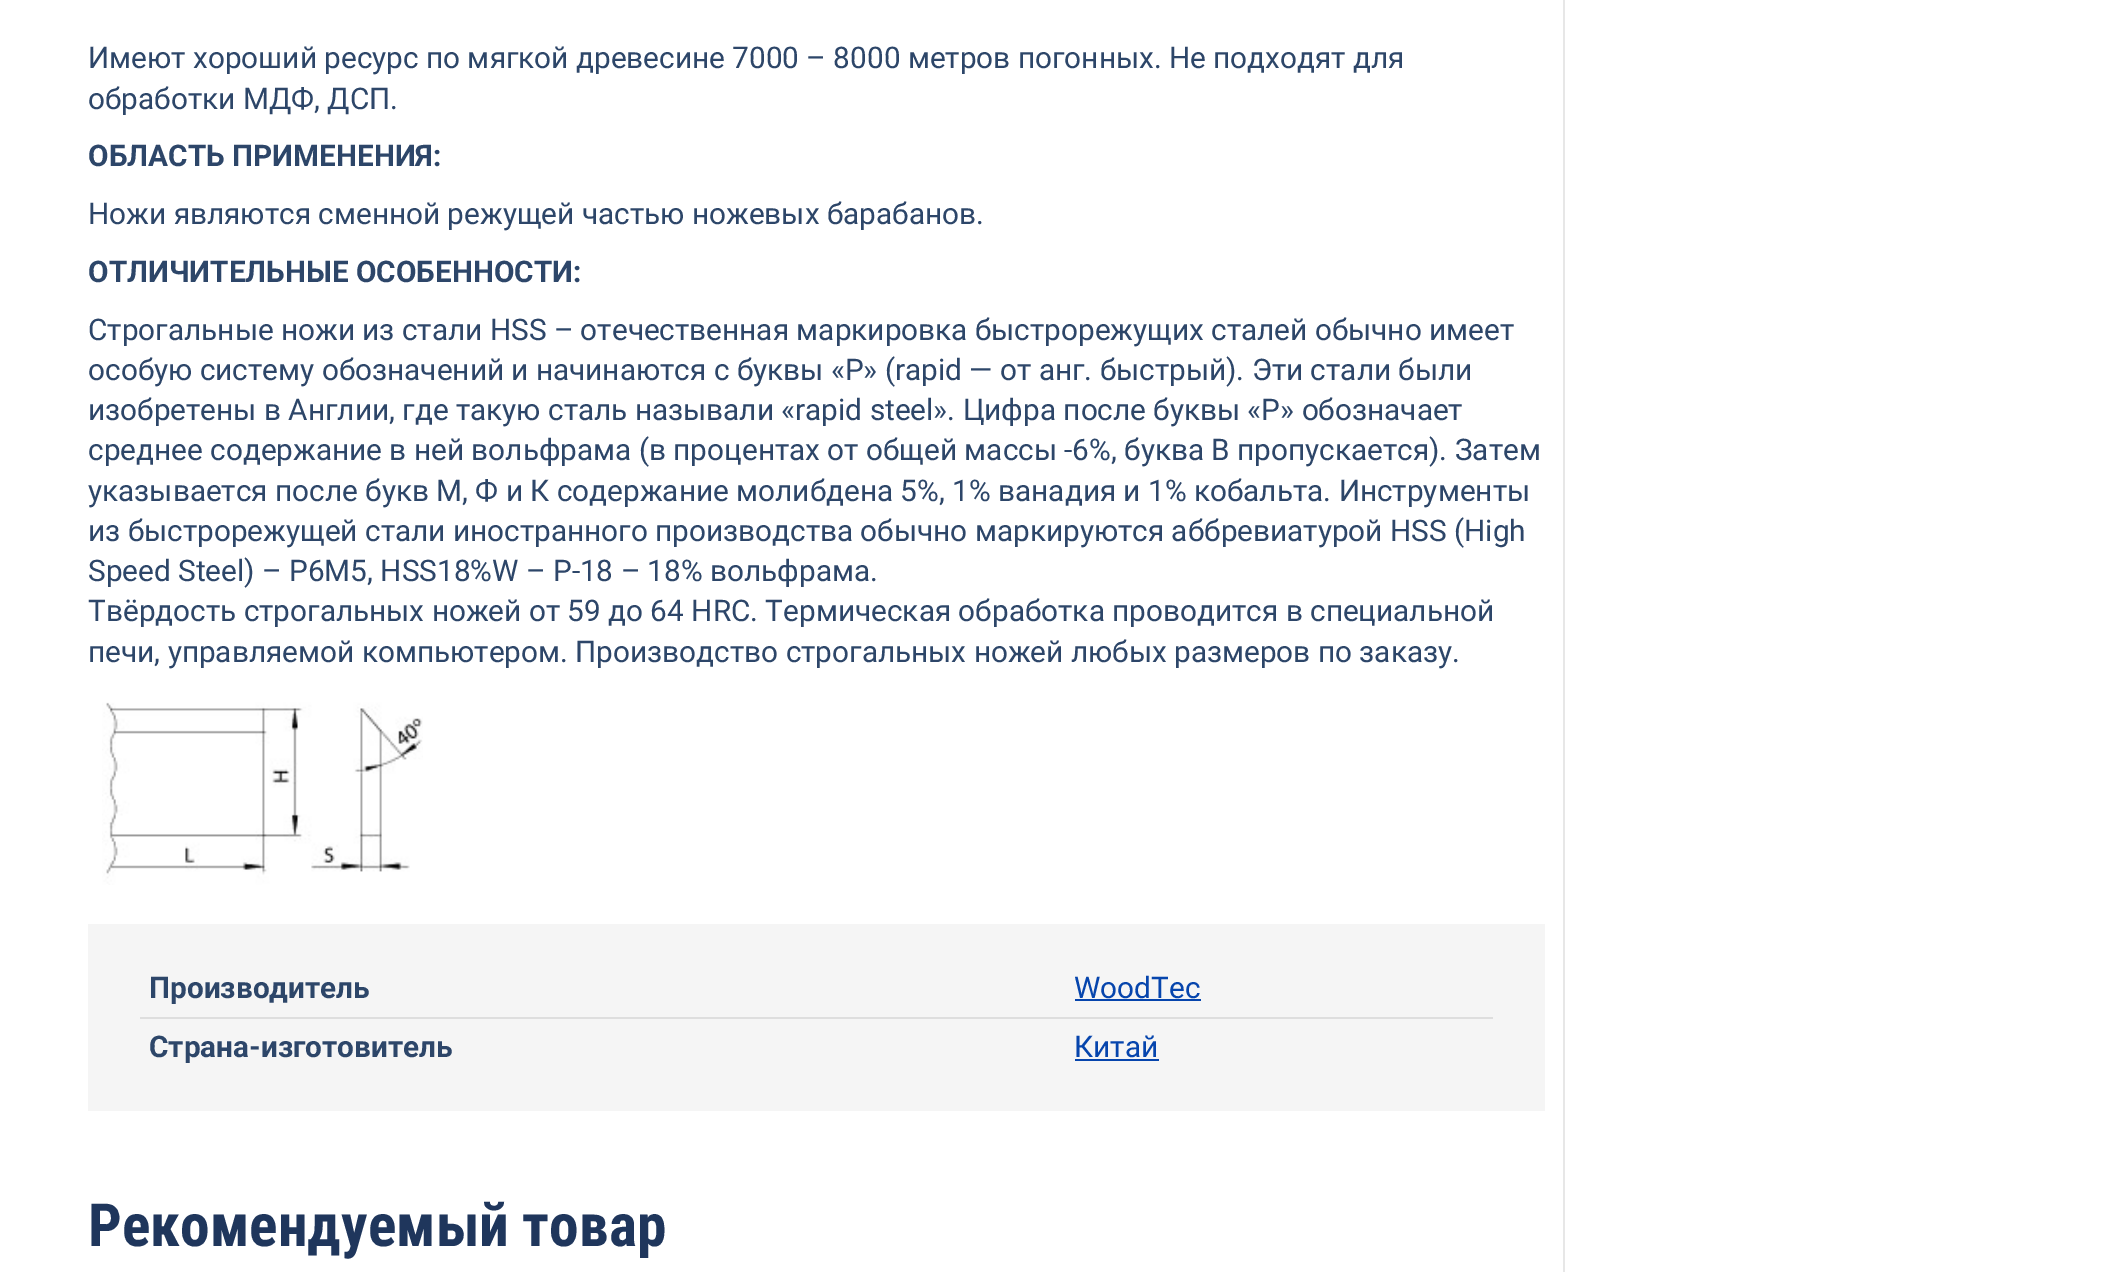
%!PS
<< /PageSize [2113 1272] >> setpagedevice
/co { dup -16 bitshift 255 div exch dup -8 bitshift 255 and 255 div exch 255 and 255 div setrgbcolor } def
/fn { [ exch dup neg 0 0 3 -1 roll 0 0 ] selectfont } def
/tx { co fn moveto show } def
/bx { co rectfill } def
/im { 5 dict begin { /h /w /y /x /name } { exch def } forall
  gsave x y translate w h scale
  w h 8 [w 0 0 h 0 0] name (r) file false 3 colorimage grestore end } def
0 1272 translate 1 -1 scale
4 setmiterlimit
0 0 2113 1272 16#FFFFFF bx
(media/1.raw) 102 702 321 183 im
88 924 1457 187 16#F5F5F5 bx
1075 999 126 2 16#0645AD bx
140 1017 1353 2 16#DEDEDE bx
1075 1059 84 2 16#0645AD bx
1563 0 2 1272 16#E7E7E7 bx
(Имеют хороший ресурс по мягкой древесине 7000 – 8000 метров погонных. Не подходят для) 88 68 /Roboto-Regular 29.75 16#2D4669 tx
(обработки МДФ, ДСП.) 88 109 /Roboto-Regular 29.75 16#2D4669 tx
(ОБЛАСТЬ ПРИМЕНЕНИЯ:) 88 166 /Roboto-Bold 29.75 16#2D4669 tx
(Ножи являются сменной режущей частью ножевых барабанов.) 88 224 /Roboto-Regular 29.75 16#2D4669 tx
(ОТЛИЧИТЕЛЬНЫЕ ОСОБЕННОСТИ:) 88 282 /Roboto-Bold 29.75 16#2D4669 tx
(Строгальные ножи из стали HSS – отечественная маркировка быстрорежущих сталей обычно имеет) 88 340 /Roboto-Regular 29.75 16#2D4669 tx
(особую систему обозначений и начинаются с буквы «Р» \(rapid — от анг. быстрый\). Эти стали были) 88 380 /Roboto-Regular 29.75 16#2D4669 tx
(изобретены в Англии, где такую сталь называли «rapid steel». Цифра после буквы «Р» обозначает) 88 420 /Roboto-Regular 29.75 16#2D4669 tx
(среднее содержание в ней вольфрама \(в процентах от общей массы -6%, буква В пропускается\). Затем) 88 460 /Roboto-Regular 29.75 16#2D4669 tx
(указывается после букв М, Ф и К содержание молибдена 5%, 1% ванадия и 1% кобальта. Инструменты) 88 501 /Roboto-Regular 29.75 16#2D4669 tx
(из быстрорежущей стали иностранного производства обычно маркируются аббревиатурой HSS \(High) 88 541 /Roboto-Regular 29.75 16#2D4669 tx
(Speed Steel\) – Р6M5, HSS18%W – Р-18 – 18% вольфрама.) 88 581 /Roboto-Regular 29.75 16#2D4669 tx
(Твёрдость строгальных ножей от 59 до 64 HRC. Термическая обработка проводится в специальной) 88 621 /Roboto-Regular 29.75 16#2D4669 tx
(печи, управляемой компьютером. Производство строгальных ножей любых размеров по заказу.) 88 662 /Roboto-Regular 29.75 16#2D4669 tx
(Производитель) 149 998 /Roboto-Bold 29.75 16#2D4669 tx
(WoodTec) 1074 998 /Roboto-Regular 29.75 16#0645AD tx
(Страна-изготовитель) 149 1057 /Roboto-Bold 29.75 16#2D4669 tx
(Китай) 1074 1057 /Roboto-Regular 29.75 16#0645AD tx
(Рекомендуемый товар) 88 1246 /RobotoCondensed-Bold 59.5 16#1F365C tx
showpage
